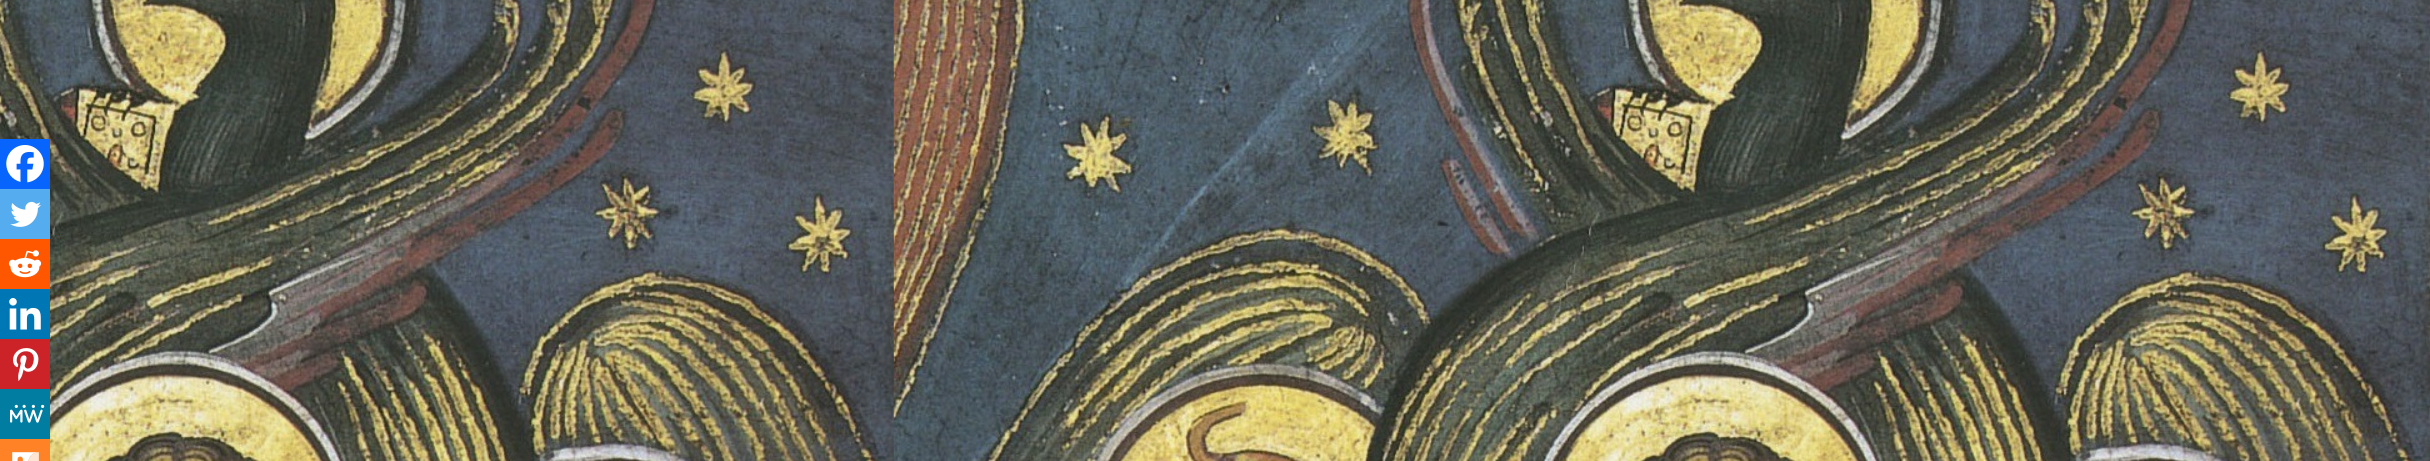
%!PS
<< /PageSize [2430 461] >> setpagedevice
/co { dup -16 bitshift 255 div exch dup -8 bitshift 255 and 255 div exch 255 and 255 div setrgbcolor } def
/bx { co rectfill } def
/im { 5 dict begin { /h /w /y /x /name } { exch def } forall
  gsave x y translate w h scale
  w h 8 [w 0 0 h 0 0] name (r) file false 3 colorimage grestore end } def
0 461 translate 1 -1 scale
4 setmiterlimit
0 0 2430 461 16#FFFFFF bx
(media/1.raw) 0 0 2430 461 im
0 139 50 50 16#0765FE bx
(media/2.raw) 6 145 38 38 im
0 189 50 50 16#55ACEE bx
(media/3.raw) 10 201 31 26 im
0 239 50 50 16#FF5700 bx
(media/4.raw) 8 250 34 28 im
0 289 50 50 16#0077B5 bx
(media/5.raw) 9 298 32 32 im
0 339 50 50 16#CC2329 bx
(media/6.raw) 13 348 26 33 im
0 389 50 50 16#007DA1 bx
(media/7.raw) 10 404 35 19 im
0 439 50 22 16#FF8226 bx
(media/8.raw) 12 452 27 9 im
showpage
